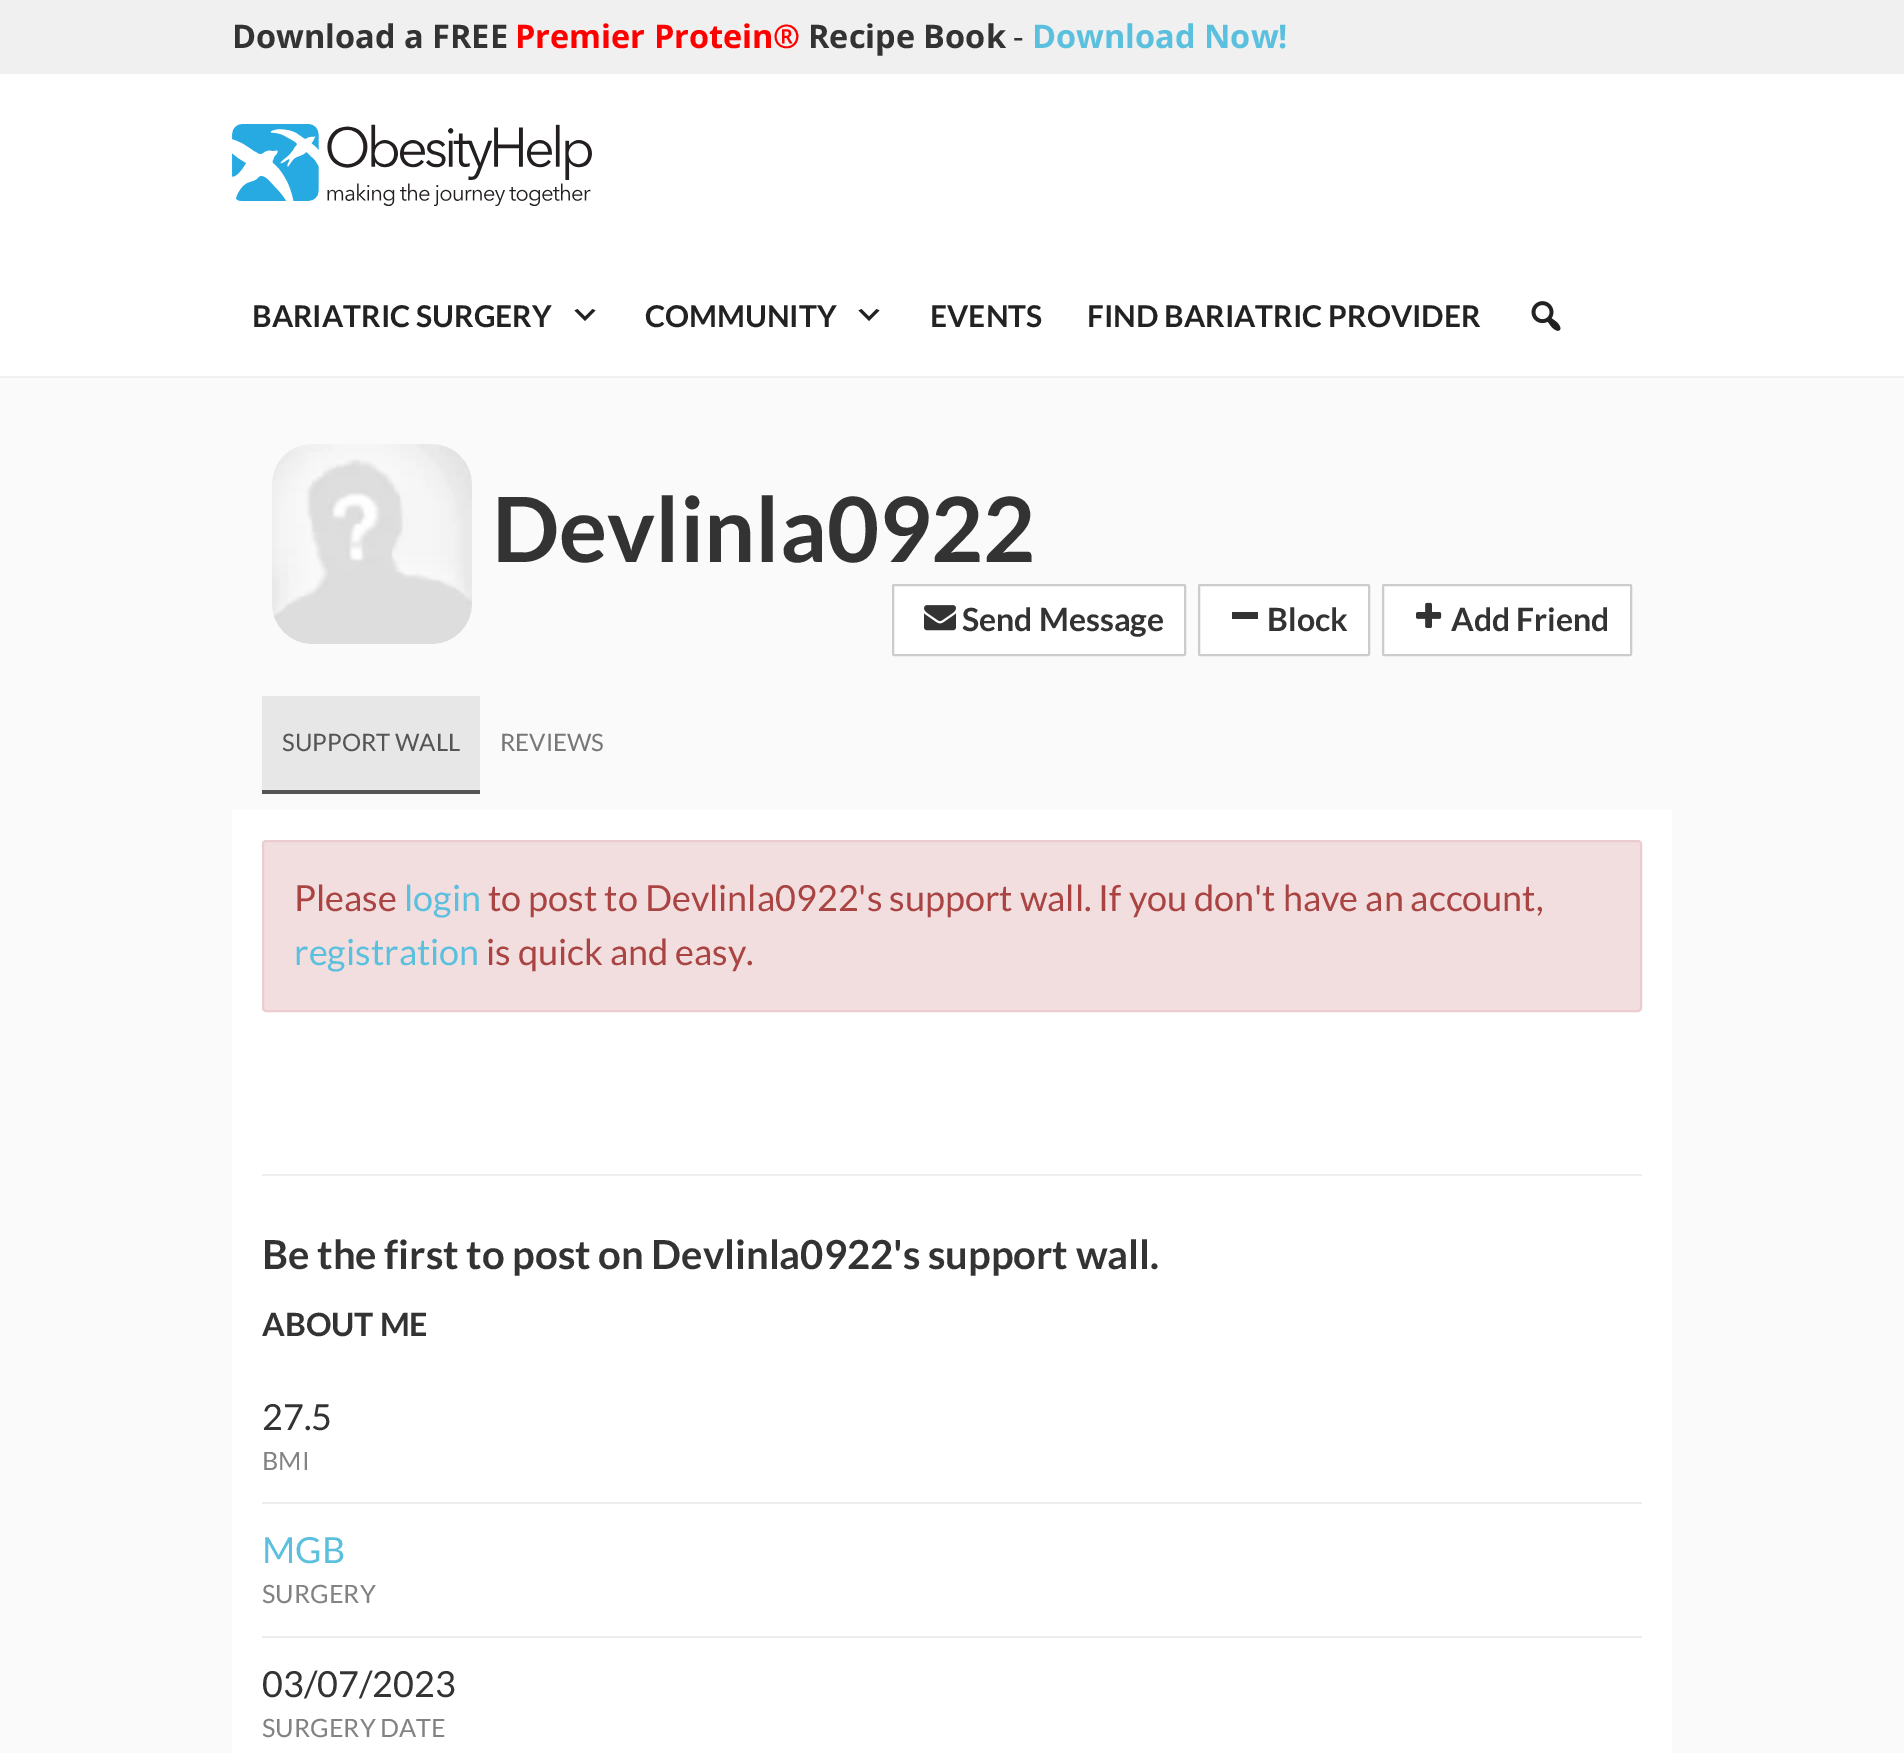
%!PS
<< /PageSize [1904 1753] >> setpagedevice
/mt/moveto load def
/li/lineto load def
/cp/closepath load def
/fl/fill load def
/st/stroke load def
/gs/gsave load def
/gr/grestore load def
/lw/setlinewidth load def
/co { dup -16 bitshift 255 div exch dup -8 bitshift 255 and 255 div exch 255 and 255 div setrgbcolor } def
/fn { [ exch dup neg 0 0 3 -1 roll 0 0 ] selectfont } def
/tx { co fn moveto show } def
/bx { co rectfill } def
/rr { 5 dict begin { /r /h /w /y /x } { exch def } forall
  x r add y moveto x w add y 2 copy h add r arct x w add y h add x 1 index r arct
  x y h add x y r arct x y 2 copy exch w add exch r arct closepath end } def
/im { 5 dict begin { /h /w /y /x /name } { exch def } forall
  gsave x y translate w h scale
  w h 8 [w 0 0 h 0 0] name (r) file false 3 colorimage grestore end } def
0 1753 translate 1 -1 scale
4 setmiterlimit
0 0 1904 1753 16#FAFAFA bx
0 74 1904 302 16#FFFFFF bx
0 376 1904 2 16#F0F0F0 bx
0 0 1904 74 16#F0F0F0 bx
(media/1.raw) 232 124 360 82 im
16#222222 co
577.5 309 mt 585 316.5 li 592.5 309 li 595.5 310.5 li 585 321 li 574.5 310.5 li cp fl
861.5 309 mt 869 316.5 li 876.5 309 li 879.5 310.5 li 869 321 li 858.5 310.5 li cp fl
(media/2.raw) 1531 301 30 30 im
(media/3.raw) 272 444 200 200 im
16#FFFFFF co
893 585 292 70 1 rr gs fl gr
16#CCCCCC co
2 lw
st
(media/4.raw) 924 605 32 26 im
16#FFFFFF co
1199 585 170 70 1 rr gs fl gr
16#CCCCCC co
st
1232 612 26 7 16#333333 bx
16#FFFFFF co
1383 585 248 70 1 rr gs fl gr
16#CCCCCC co
st
(media/5.raw) 1416 602 26 26 im
262 696 218 94 16#E7E7E7 bx
262 790 218 4 16#555555 bx
232 810 1440 943 16#FFFFFF bx
16#F2DEDE co
263 841 1378 170 3 rr gs fl gr
16#EBCCD1 co
st
262 1174 1380 2 16#EEEEEE bx
262 1502 1380 2 16#EDEDED bx
262 1636 1380 2 16#EDEDED bx
(Download a FREE) 232 48 /OpenSans-Bold 32.5 16#333333 tx
(Premier Protein®) 515 48 /OpenSans-Bold 32.5 16#FF0000 tx
(Recipe Book) 808 48 /OpenSans-Bold 32.5 16#333333 tx
(-) 1013 48 /OpenSans-Regular 32.5 16#333333 tx
(Download Now!) 1032 48 /OpenSans-Bold 32.5 16#5BC0DE tx
(BARIATRIC SURGERY) 252 327 /Lato-Bold 30 16#222222 tx
(COMMUNITY) 645 327 /Lato-Bold 30 16#222222 tx
(EVENTS) 930 327 /Lato-Bold 30 16#222222 tx
(FIND BARIATRIC PROVIDER) 1087 327 /Lato-Bold 30 16#222222 tx
(Devlinla0922) 492 562 /Lato-Bold 90 16#333333 tx
(Send Message) 962 631 /Lato-Bold 32 16#333333 tx
(Block) 1267 631 /Lato-Bold 32 16#333333 tx
(Add Friend) 1451 631 /Lato-Bold 32 16#333333 tx
(SUPPORT WALL) 282 751 /Lato-Regular 24 16#555555 tx
(REVIEWS) 500 751 /Lato-Regular 24 16#777777 tx
(Please) 294 911 /Lato-Regular 36 16#A94442 tx
(login) 404 911 /Lato-Regular 36 16#5BC0DE tx
(to post to Devlinla0922's support wall. If you don't have an account,) 488 911 /Lato-Regular 36 16#A94442 tx
(registration) 294 965 /Lato-Regular 36 16#5BC0DE tx
(is quick and easy.) 486 965 /Lato-Regular 36 16#A94442 tx
(Be the first to post on Devlinla0922's support wall.) 262 1269 /Lato-Bold 40 16#333333 tx
(ABOUT ME) 262 1336 /Lato-Bold 32 16#333333 tx
(27.5) 262 1430 /Lato-Regular 36 16#333333 tx
(BMI) 262 1470 /Lato-Regular 25.25 16#828282 tx
(MGB) 262 1563 /Lato-Regular 36 16#5BC0DE tx
(SURGERY) 262 1603 /Lato-Regular 25.25 16#828282 tx
(03/07/2023) 262 1697 /Lato-Regular 36 16#333333 tx
(SURGERY DATE) 262 1737 /Lato-Regular 25.25 16#828282 tx
showpage
